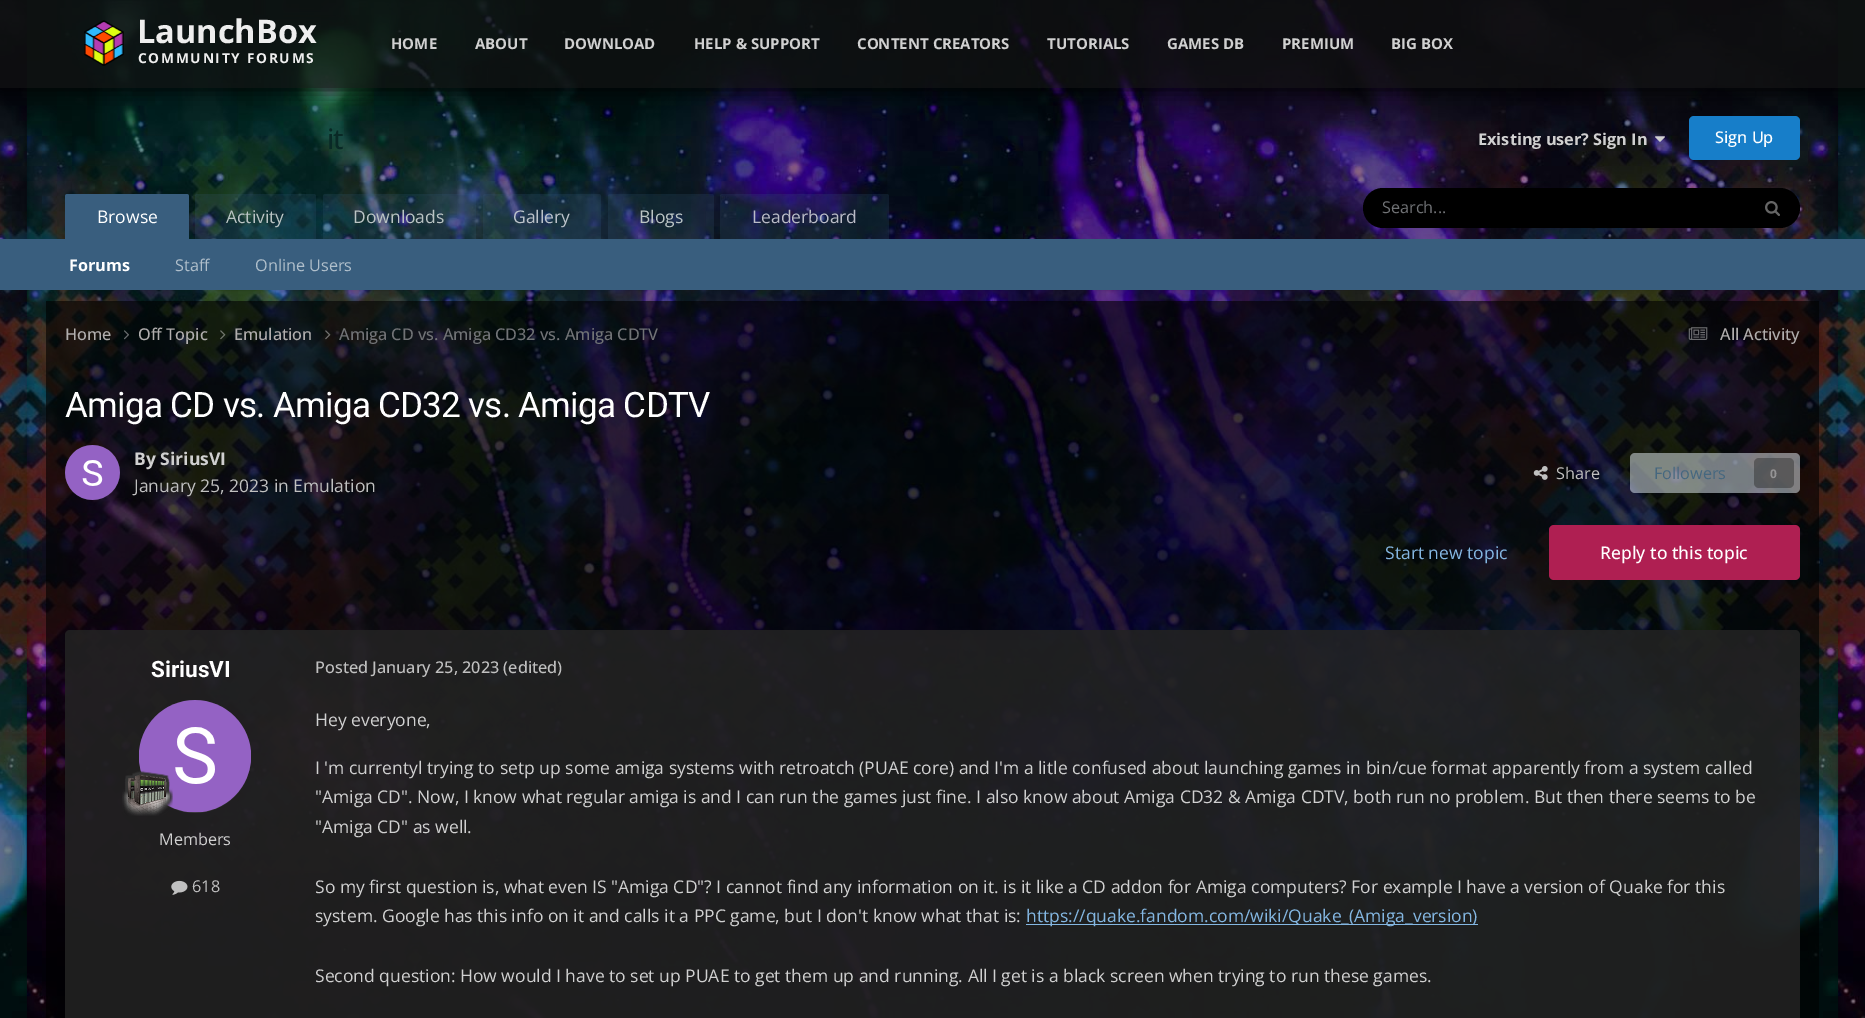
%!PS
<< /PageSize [1865 1018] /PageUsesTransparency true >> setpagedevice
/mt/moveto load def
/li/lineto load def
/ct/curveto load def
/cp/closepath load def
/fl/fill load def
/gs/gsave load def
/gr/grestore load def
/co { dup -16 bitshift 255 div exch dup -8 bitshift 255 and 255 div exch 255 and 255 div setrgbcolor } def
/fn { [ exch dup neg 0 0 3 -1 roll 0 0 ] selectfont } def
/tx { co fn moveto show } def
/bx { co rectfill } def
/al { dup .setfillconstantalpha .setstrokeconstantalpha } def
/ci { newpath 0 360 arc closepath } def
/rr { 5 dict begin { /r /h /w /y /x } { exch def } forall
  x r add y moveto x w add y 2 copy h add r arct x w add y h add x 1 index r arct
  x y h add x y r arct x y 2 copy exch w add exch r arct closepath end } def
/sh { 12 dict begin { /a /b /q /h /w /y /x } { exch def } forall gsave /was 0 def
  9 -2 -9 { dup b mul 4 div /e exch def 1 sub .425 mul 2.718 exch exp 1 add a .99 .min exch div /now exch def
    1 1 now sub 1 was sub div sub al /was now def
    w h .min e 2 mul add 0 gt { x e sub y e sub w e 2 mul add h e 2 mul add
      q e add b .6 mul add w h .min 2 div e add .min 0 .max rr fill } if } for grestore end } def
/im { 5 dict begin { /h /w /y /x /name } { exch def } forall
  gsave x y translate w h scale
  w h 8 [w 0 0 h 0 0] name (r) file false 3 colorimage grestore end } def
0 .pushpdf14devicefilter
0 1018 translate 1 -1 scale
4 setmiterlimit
0 0 1865 1018 16#FFFFFF bx
(media/1.raw) 0 0 1865 1018 im
16#177EC9 co
1689 116 111 44 5 rr fl
gs
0 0 mt 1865 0 li 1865 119 li 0 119 li cp 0 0 mt 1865 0 li 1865 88 li 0 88 li cp eoclip newpath
16#000000 co
0 1 1865 88 0 9.5 1 sh
gr
0.73 al
0 0 1865 88 16#111111 bx
1 al
(media/2.raw) 84 20 40 46 im
(media/3.raw) 1655 136 10 6 im
16#000000 co
1363 188 437 40 20 rr fl
(media/4.raw) 1765 201 15 15 im
0 240 1865 51 0 1 .1 sh
16#395E7E co
67.5 194 mt 186.5 194 li 188 194 189 195 189 196.5 ct 189 239 li 65 239 li 65 196.5 li 65 195 66 194 67.5 194 ct cp fl
0.2 al
325.5 194 mt 473.5 194 li 475 194 476 195 476 196.5 ct 476 239 li 323 239 li 323 196.5 li 323 195 324 194 325.5 194 ct cp fl
485.5 194 mt 598.5 194 li 600 194 601 195 601 196.5 ct 601 239 li 483 239 li 483 196.5 li 483 195 484 194 485.5 194 ct cp fl
610.5 194 mt 711.5 194 li 713 194 714 195 714 196.5 ct 714 239 li 608 239 li 608 196.5 li 608 195 609 194 610.5 194 ct cp fl
722.5 194 mt 886.5 194 li 888 194 889 195 889 196.5 ct 889 239 li 720 239 li 720 196.5 li 720 195 721 194 722.5 194 ct cp fl
197.5 194 mt 313.5 194 li 315 194 316 195 316 196.5 ct 316 239 li 195 239 li 195 196.5 li 195 195 196 194 197.5 194 ct cp fl
1 al
0 239 1865 51 16#395E7E bx
0.6 al
46 301 1773 717 16#000000 bx
1 al
(media/5.raw) 124 330 5 10 im
(media/6.raw) 220 330 6 10 im
(media/7.raw) 325 330 6 10 im
(media/8.raw) 1688 327 20 13 im
16#333333 co
92.5 472.5 27.5 ci fl
(media/9.raw) 65 445 55 55 im
(media/10.raw) 1533 466 15 14 im
0.5 al
16#E8F2FA co
1630 453 170 40 5 rr fl
16#333333 co
1754 458 40 30 5 rr fl
1 al
16#AF1F52 co
1549 525 251 55 5 rr fl
0.87 al
16#222222 co
65 630 1735 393 5 rr fl
1 al
16#333333 co
139 700 112 113 56 rr fl
(media/11.raw) 139 700 112 113 im
(media/12.raw) 122 771 51 45 im
(media/13.raw) 171 880 17 15 im
1026 924 452 1 16#84B7E2 bx
(LaunchBox) 137 43 /OpenSans-Bold 32.5 16#EEEEEE tx
/OpenSans-Bold 13.75 fn
138 63 mt 1.7 0 (COMMUNITY FORUMS) ashow
(HOME) 391 49 /OpenSans-Bold 15 16#D0D0D0 tx
(ABOUT) 475 49 /OpenSans-Bold 15 16#D0D0D0 tx
(DOWNLOAD) 564 49 /OpenSans-Bold 15 16#D0D0D0 tx
(HELP & SUPPORT) 694 49 /OpenSans-Bold 15 16#D0D0D0 tx
(CONTENT CREATORS) 857 49 /OpenSans-Bold 15 16#D0D0D0 tx
(TUTORIALS) 1047 49 /OpenSans-Bold 15 16#D0D0D0 tx
(GAMES DB) 1167 49 /OpenSans-Bold 15 16#D0D0D0 tx
(PREMIUM) 1282 49 /OpenSans-Bold 15 16#D0D0D0 tx
(BIG BOX) 1391 49 /OpenSans-Bold 15 16#D0D0D0 tx
/OpenSans-Medium 28 fn
16#092926 co
327 149 mt -1 0 (it) ashow
(Existing user? Sign In) 1478 145 /OpenSans-Bold 16.25 16#D0D0D0 tx
(Sign Up) 1715 143 /OpenSans-Medium 16.25 16#FFFFFF tx
(Search...) 1382 213 /OpenSans-Regular 16.25 16#717376 tx
(Browse) 97 223 /OpenSans-Regular 17.5 16#FFFFFF tx
(Forums) 69 271 /OpenSans-Bold 16.25 16#FFFFFF tx
(Staff) 175 271 /OpenSans-Regular 16.25 16#B0BFCB tx
(Online Users) 255 271 /OpenSans-Regular 16.25 16#B0BFCB tx
(Downloads) 353 223 /OpenSans-Regular 17.5 16#BAC4C4 tx
(Gallery) 513 223 /OpenSans-Regular 17.5 16#BCC3CA tx
(Blogs) 639 223 /OpenSans-Regular 17.5 16#BAC4C4 tx
(Leaderboard) 752 223 /OpenSans-Regular 17.5 16#BABCC7 tx
(Activity) 226 223 /OpenSans-Regular 17.5 16#BAC4C4 tx
(Home) 65 340 /OpenSans-Medium 16.25 16#B1AEAE tx
(Off Topic) 138 340 /OpenSans-Medium 16.25 16#B1AEAE tx
(Emulation) 234 340 /OpenSans-Medium 16.25 16#B1AEAE tx
(Amiga CD vs. Amiga CD32 vs. Amiga CDTV) 339 340 /OpenSans-Medium 16.25 16#717376 tx
(All Activity) 1720 340 /OpenSans-Medium 16.25 16#B1AEAE tx
/Roboto-Regular 35 fn
16#FFFFFF co
65 417 mt -.7 0 (Amiga CD vs. Amiga CD32 vs. Amiga CDTV) ashow
(By SiriusVI) 134 465 /OpenSans-Bold 17.5 16#D0D0D0 tx
(January 25, 2023 in Emulation) 134 492 /OpenSans-Regular 17.5 16#C0C0C0 tx
(Share) 1556 479 /OpenSans-Regular 16.25 16#C0C0C0 tx
(Followers) 1654 479 /OpenSans-Regular 16.25 16#45677F tx
(0) 1770 478 /OpenSans-Bold 12 16#959495 tx
(Start new topic) 1385 559 /OpenSans-Regular 17.5 16#84B7E2 tx
(Reply to this topic) 1600 559 /OpenSans-Medium 17.5 16#FFFFFF tx
(SiriusVI) 151 677 /Roboto-Bold 22.5 16#FFFFFF tx
(Members) 159 845 /OpenSans-Regular 16.25 16#D0D0D0 tx
(618) 192 892 /OpenSans-Regular 16.25 16#C0C0C0 tx
(Posted January 25, 2023 \(edited\)) 315 673 /OpenSans-Medium 16.25 16#C0C0C0 tx
(Hey everyone,) 315 726 /OpenSans-Regular 17.5 16#D0D0D0 tx
(I 'm currentyl trying to setp up some amiga systems with retroatch \(PUAE core\) and I'm a litle confused about launching games in bin/cue format apparently from a system called) 315 774 /OpenSans-Regular 17.5 16#D0D0D0 tx
("Amiga CD". Now, I know what regular amiga is and I can run the games just fine. I also know about Amiga CD32 & Amiga CDTV, both run no problem. But then there seems to be) 315 803 /OpenSans-Regular 17.5 16#D0D0D0 tx
("Amiga CD" as well.) 315 833 /OpenSans-Regular 17.5 16#D0D0D0 tx
(So my first question is, what even IS "Amiga CD"? I cannot find any information on it. is it like a CD addon for Amiga computers? For example I have a version of Quake for this) 315 893 /OpenSans-Regular 17.5 16#D0D0D0 tx
(system. Google has this info on it and calls it a PPC game, but I don't know what that is:) 315 922 /OpenSans-Regular 17.5 16#D0D0D0 tx
(https://quake.fandom.com/wiki/Quake_\(Amiga_version\)) 1026 922 /OpenSans-Regular 17.5 16#84B7E2 tx
(Second question: How would I have to set up PUAE to get them up and running. All I get is a black screen when trying to run these games.) 315 982 /OpenSans-Regular 17.5 16#D0D0D0 tx
.poppdf14devicefilter showpage
